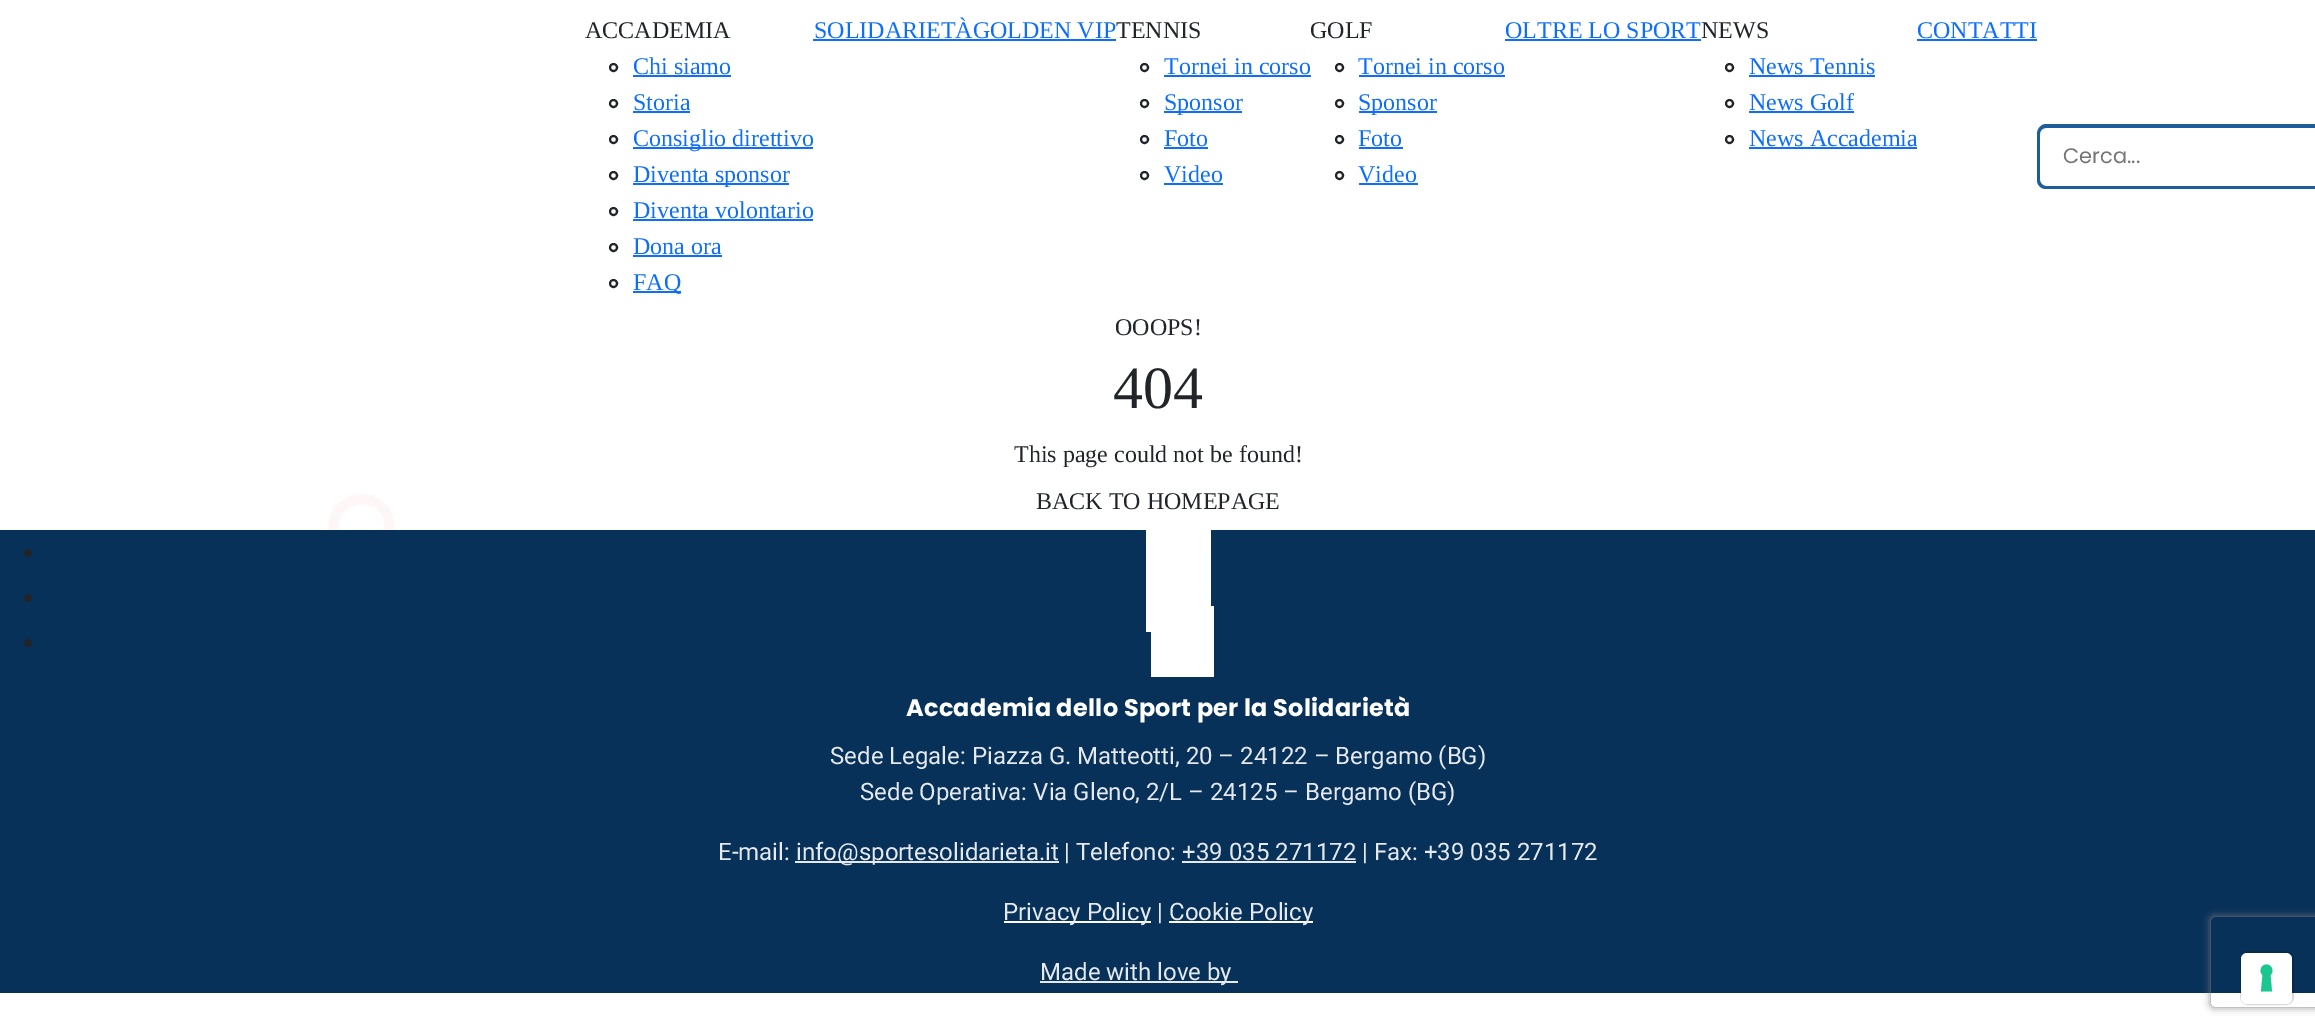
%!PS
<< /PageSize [2315 1027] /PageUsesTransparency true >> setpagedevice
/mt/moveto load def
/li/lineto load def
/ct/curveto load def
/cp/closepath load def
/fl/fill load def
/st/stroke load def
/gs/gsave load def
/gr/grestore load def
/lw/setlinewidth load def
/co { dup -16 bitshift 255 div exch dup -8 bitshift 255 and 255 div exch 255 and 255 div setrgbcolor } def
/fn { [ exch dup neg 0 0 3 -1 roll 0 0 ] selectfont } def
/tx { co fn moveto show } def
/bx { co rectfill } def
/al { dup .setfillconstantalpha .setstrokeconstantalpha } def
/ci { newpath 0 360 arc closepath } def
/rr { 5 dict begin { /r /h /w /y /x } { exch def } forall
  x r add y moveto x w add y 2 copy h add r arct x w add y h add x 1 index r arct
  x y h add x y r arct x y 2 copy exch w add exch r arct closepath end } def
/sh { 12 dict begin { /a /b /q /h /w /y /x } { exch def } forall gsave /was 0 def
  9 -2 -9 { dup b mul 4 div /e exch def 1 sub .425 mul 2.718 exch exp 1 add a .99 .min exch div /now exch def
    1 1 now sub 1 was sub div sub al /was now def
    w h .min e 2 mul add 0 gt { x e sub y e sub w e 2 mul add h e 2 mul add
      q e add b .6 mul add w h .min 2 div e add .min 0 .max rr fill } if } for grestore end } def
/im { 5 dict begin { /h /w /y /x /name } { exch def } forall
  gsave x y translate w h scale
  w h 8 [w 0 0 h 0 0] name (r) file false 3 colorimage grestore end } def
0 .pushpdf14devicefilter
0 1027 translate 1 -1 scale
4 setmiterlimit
0 0 2315 1027 16#FFFFFF bx
16#212529 co
2 lw
613.5 67.5 3.5 ci st
633 75 98 2 16#0D6EFD bx
16#212529 co
613.5 103.5 3.5 ci st
633 111 57 2 16#0D6EFD bx
16#212529 co
613.5 139.5 3.5 ci st
633 147 180 2 16#0D6EFD bx
16#212529 co
613.5 175.5 3.5 ci st
633 183 156 2 16#0D6EFD bx
16#212529 co
613.5 211.5 3.5 ci st
633 219 180 2 16#0D6EFD bx
16#212529 co
613.5 247.5 3.5 ci st
633 255 89 2 16#0D6EFD bx
16#212529 co
613.5 283.5 3.5 ci st
633 291 48 2 16#0D6EFD bx
813 39 303 2 16#0D6EFD bx
16#212529 co
1144.5 67.5 3.5 ci st
1164 75 147 2 16#0D6EFD bx
16#212529 co
1144.5 103.5 3.5 ci st
1164 111 78 2 16#0D6EFD bx
16#212529 co
1144.5 139.5 3.5 ci st
1164 147 44 2 16#0D6EFD bx
16#212529 co
1144.5 175.5 3.5 ci st
1164 183 59 2 16#0D6EFD bx
16#212529 co
1339.5 67.5 3.5 ci st
1359 75 146 2 16#0D6EFD bx
16#212529 co
1339.5 103.5 3.5 ci st
1359 111 78 2 16#0D6EFD bx
16#212529 co
1339.5 139.5 3.5 ci st
1359 147 44 2 16#0D6EFD bx
16#212529 co
1339.5 175.5 3.5 ci st
1359 183 59 2 16#0D6EFD bx
1505 39 196 2 16#0D6EFD bx
16#212529 co
1729.5 67.5 3.5 ci st
1749 75 126 2 16#0D6EFD bx
16#212529 co
1729.5 103.5 3.5 ci st
1749 111 105 2 16#0D6EFD bx
16#212529 co
1729.5 139.5 3.5 ci st
1749 147 168 2 16#0D6EFD bx
1917 39 120 2 16#0D6EFD bx
16#1C5D9A co
2046 124 mt 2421 124 li 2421 189 li 2046 189 li 2041 189 2037 185 2037 180 ct 2037 134 li 2037 129 2041 124 2046 124 ct cp 2046 128 mt 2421 128 li 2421 186 li 2046 186 li 2043 186 2040 183 2040 180 ct 2040 134 li 2040 130 2043 128 2046 128 ct cp eofill
(media/1.raw) 328 494 68 36 im
0 530 2315 463 16#073159 bx
16#212529 co
28 553 4 ci fl
1146 530 65 102 16#FFFFFF bx
16#212529 co
28 598 4 ci fl
28 643 4 ci fl
1151 606 63 71 16#FFFFFF bx
795 861 264 2 16#E6EAEE bx
1182 861 174 2 16#E6EAEE bx
1004 921 147 2 16#FDFDFD bx
1169 921 144 2 16#FDFDFD bx
1040 981 198 2 16#E6EAEE bx
gs
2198 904 mt 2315 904 li 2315 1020 li 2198 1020 li cp 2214 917 mt 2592 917 li 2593.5 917 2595 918.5 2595 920 ct 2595 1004 li 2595 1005.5 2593.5 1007 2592 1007 ct 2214 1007 li 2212.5 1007 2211 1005.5 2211 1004 ct 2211 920 li 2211 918.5 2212.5 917 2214 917 ct cp eoclip newpath
16#808080 co
2211 917 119 90 3 4 1 sh
gr
0.15 al
16#000000 co
2241 952 52 52 7 rr st
1 al
16#FFFFFF co
2241 953 51 51 6 rr fl
16#1CC691 co
2266.5 964.5 mt 2272 964.5 2274.5 971.5 2270.5 975 ct 2272 991.5 li 2261 991.5 li 2262.5 975 li 2258.5 971.5 2261 964.5 2266.5 964.5 ct cp eofill
(ACCADEMIA) 585 38 /LiberationSerif-Regular 24 16#212529 tx
(Chi siamo) 633 74 /LiberationSerif-Regular 24 16#0D6EFD tx
(Storia) 633 110 /LiberationSerif-Regular 24 16#0D6EFD tx
(Consiglio direttivo) 633 146 /LiberationSerif-Regular 24 16#0D6EFD tx
(Diventa sponsor) 633 182 /LiberationSerif-Regular 24 16#0D6EFD tx
(Diventa volontario) 633 218 /LiberationSerif-Regular 24 16#0D6EFD tx
(Dona ora) 633 254 /LiberationSerif-Regular 24 16#0D6EFD tx
(FAQ) 633 290 /LiberationSerif-Regular 24 16#0D6EFD tx
(SOLIDARIETÀGOLDEN VIP) 814 38 /LiberationSerif-Regular 24 16#0D6EFD tx
(TENNIS) 1116 38 /LiberationSerif-Regular 24 16#212529 tx
(Tornei in corso) 1164 74 /LiberationSerif-Regular 24 16#0D6EFD tx
(Sponsor) 1164 110 /LiberationSerif-Regular 24 16#0D6EFD tx
(Foto) 1164 146 /LiberationSerif-Regular 24 16#0D6EFD tx
(Video) 1164 182 /LiberationSerif-Regular 24 16#0D6EFD tx
(GOLF) 1310 38 /LiberationSerif-Regular 24 16#212529 tx
(Tornei in corso) 1358 74 /LiberationSerif-Regular 24 16#0D6EFD tx
(Sponsor) 1358 110 /LiberationSerif-Regular 24 16#0D6EFD tx
(Foto) 1358 146 /LiberationSerif-Regular 24 16#0D6EFD tx
(Video) 1358 182 /LiberationSerif-Regular 24 16#0D6EFD tx
(OLTRE LO SPORT) 1505 38 /LiberationSerif-Regular 24 16#0D6EFD tx
(NEWS) 1701 38 /LiberationSerif-Regular 24 16#212529 tx
(News Tennis) 1749 74 /LiberationSerif-Regular 24 16#0D6EFD tx
(News Golf) 1749 110 /LiberationSerif-Regular 24 16#0D6EFD tx
(News Accademia) 1749 146 /LiberationSerif-Regular 24 16#0D6EFD tx
(CONTATTI) 1917 38 /LiberationSerif-Regular 24 16#0D6EFD tx
(Cerca...) 2063 163 /Poppins-Regular 21 16#757575 tx
(OOOPS!) 1115 335 /LiberationSerif-Regular 24 16#212529 tx
(404) 1113 408 /LiberationSerif-Regular 60 16#212529 tx
(This page could not be found!) 1014 462 /LiberationSerif-Regular 24 16#212529 tx
(BACK TO HOMEPAGE) 1036 509 /LiberationSerif-Regular 24 16#212529 tx
/Poppins-Bold 24 fn
16#FFFFFF co
906 716 mt .25 0 (Accademia dello Sport per la Solidarietà) ashow
(Sede Legale: Piazza G. Matteotti, 20 – 24122 – Bergamo \(BG\)) 830 764 /Roboto-Regular 24 16#E6EAEE tx
(Sede Operativa: Via Gleno, 2/L – 24125 – Bergamo \(BG\)) 860 800 /Roboto-Regular 24 16#E6EAEE tx
(E-mail:) 718 860 /Roboto-Regular 24 16#E6EAEE tx
(info@sportesolidarieta.it) 796 860 /Roboto-Regular 24 16#E6EAEE tx
(| Telefono: +39 035 271172 | Fax: +39 035 271172) 1064 860 /Roboto-Regular 24 16#E6EAEE tx
(Privacy Policy) 1003 920 /Roboto-Regular 24 16#E6EAEE tx
(|) 1157 920 /Roboto-Regular 24 16#E6EAEE tx
(Cookie Policy) 1169 920 /Roboto-Regular 24 16#E6EAEE tx
(Made with love by) 1040 980 /Roboto-Regular 24 16#E6EAEE tx
.poppdf14devicefilter showpage
